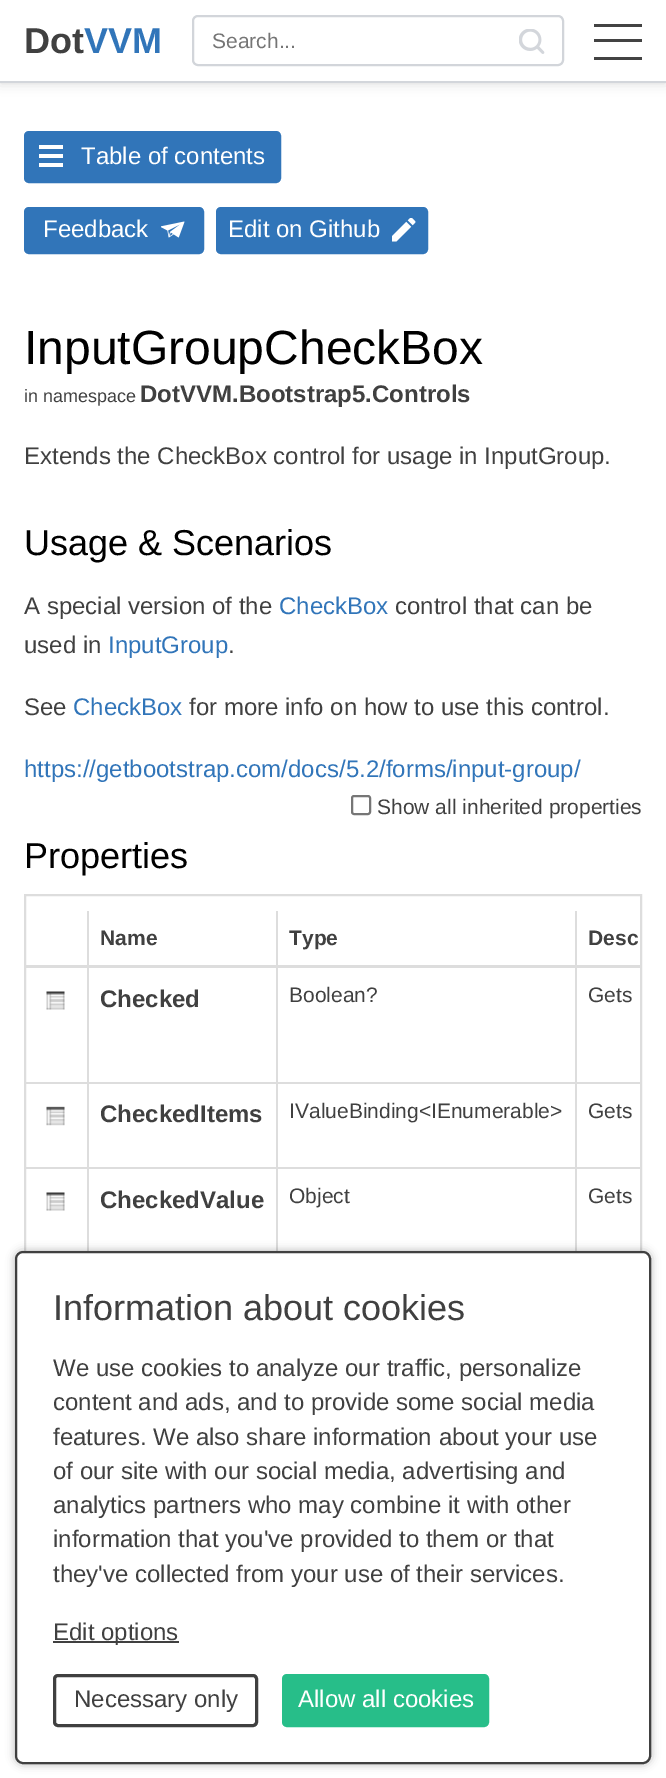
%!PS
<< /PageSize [666 1778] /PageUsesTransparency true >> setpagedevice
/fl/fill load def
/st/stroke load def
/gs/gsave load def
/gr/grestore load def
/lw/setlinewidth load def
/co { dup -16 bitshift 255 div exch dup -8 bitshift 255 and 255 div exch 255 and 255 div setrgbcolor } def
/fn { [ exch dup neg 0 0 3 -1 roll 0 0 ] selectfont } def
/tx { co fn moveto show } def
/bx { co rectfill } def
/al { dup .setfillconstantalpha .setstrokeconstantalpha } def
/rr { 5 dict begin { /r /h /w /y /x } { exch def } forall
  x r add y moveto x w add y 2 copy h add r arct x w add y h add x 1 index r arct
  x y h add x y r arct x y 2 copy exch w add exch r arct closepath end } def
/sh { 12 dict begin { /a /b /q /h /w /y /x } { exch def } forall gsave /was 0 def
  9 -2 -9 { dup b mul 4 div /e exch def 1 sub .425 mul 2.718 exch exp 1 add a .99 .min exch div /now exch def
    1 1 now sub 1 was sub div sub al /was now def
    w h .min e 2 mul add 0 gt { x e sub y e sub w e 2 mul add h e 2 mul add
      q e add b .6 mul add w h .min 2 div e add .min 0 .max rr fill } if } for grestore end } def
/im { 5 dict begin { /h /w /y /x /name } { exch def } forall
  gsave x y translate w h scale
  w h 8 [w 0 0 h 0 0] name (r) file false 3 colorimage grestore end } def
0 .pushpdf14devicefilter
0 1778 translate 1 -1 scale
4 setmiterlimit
0 0 666 1778 16#FFFFFF bx
16#000000 co
0 0 666 83 0 6 .16 sh
0 0 666 81 16#FFFFFF bx
0 81 666 2 16#D3D6DB bx
16#D2D5DA co
2 lw
193 16 370 49 5 rr st
(media/1.raw) 519 29 26 25 im
594 24 48 3 16#434343 bx
594 39 48 3 16#434343 bx
594 57 48 3 16#434343 bx
16#3175B9 co
25.5 132.5 254 49 3.5 rr gs fl gr
3 lw
st
39 163 24 4 16#FFFFFF bx
39 154 24 4 16#FFFFFF bx
39 145 24 4 16#FFFFFF bx
16#3175B9 co
25.5 208.5 177 44 3.5 rr gs fl gr
st
(media/2.raw) 161 221 24 17 im
217.5 208.5 209 44 3.5 rr gs fl gr
st
(media/3.raw) 392 218 24 24 im
16#767676 co
2 lw
352 796 18 18 2 rr st
16#DDDDDD co
25 895 616 855 rectstroke
575 1082 66 2 16#DDDDDD bx
575 1167 66 2 16#DDDDDD bx
575 1167 2 84 16#DDDDDD bx
276 1167 300 2 16#DDDDDD bx
575 1082 2 87 16#DDDDDD bx
276 1082 300 2 16#DDDDDD bx
276 1167 2 84 16#DDDDDD bx
87 1167 191 2 16#DDDDDD bx
276 1082 2 87 16#DDDDDD bx
87 1082 191 2 16#DDDDDD bx
87 1167 2 84 16#DDDDDD bx
26 1167 63 2 16#DDDDDD bx
87 1082 2 87 16#DDDDDD bx
26 1082 63 2 16#DDDDDD bx
87 911 2 172 16#DDDDDD bx
276 911 2 172 16#DDDDDD bx
575 911 2 172 16#DDDDDD bx
26 965 615 3 16#DDDDDD bx
(media/4.raw) 46 991 19 19 im
(media/5.raw) 46 1106 19 20 im
(media/4.raw) 46 1192 19 19 im
16#000000 co
15 1251 636 513 8 4.5 .3 sh
16#FFFFFF co
16 1252 634 511 7 rr gs fl gr
16#404040 co
st
53 1641 126 2 16#404040 bx
3 lw
54.5 1675.5 202 50 3.5 rr st
16#27BE89 co
283.5 1675.5 204 50 3.5 rr gs fl gr
st
(Dot) 24 53 /LiberationSans-Bold 36 16#404040 tx
(VVM) 84 53 /LiberationSans-Bold 36 16#3175B9 tx
(Search...) 212 48 /LiberationSans-Regular 21 16#757575 tx
(Table of contents) 81 164 /LiberationSans-Regular 24 16#FFFFFF tx
(Feedback) 43 237 /LiberationSans-Regular 24 16#FFFFFF tx
(Edit on Github) 228 237 /LiberationSans-Regular 24 16#FFFFFF tx
(InputGroupCheckBox) 24 364 /LiberationSans-Regular 48 16#000000 tx
(in namespace) 24 402 /LiberationSans-Regular 18 16#404040 tx
(DotVVM.Bootstrap5.Controls) 140 402 /LiberationSans-Bold 24 16#404040 tx
(Extends the CheckBox control for usage in InputGroup.) 24 464 /LiberationSans-Regular 24 16#404040 tx
(Usage & Scenarios) 24 555 /LiberationSans-Regular 36 16#000000 tx
(A special version of the) 24 614 /LiberationSans-Regular 24 16#404040 tx
(CheckBox) 279 614 /LiberationSans-Regular 24 16#3175B9 tx
(control that can be) 395 614 /LiberationSans-Regular 24 16#404040 tx
(used in) 24 653 /LiberationSans-Regular 24 16#404040 tx
(InputGroup) 108 653 /LiberationSans-Regular 24 16#3175B9 tx
(.) 228 653 /LiberationSans-Regular 24 16#404040 tx
(See) 24 715 /LiberationSans-Regular 24 16#404040 tx
(CheckBox) 73 715 /LiberationSans-Regular 24 16#3175B9 tx
(for more info on how to use this control.) 189 715 /LiberationSans-Regular 24 16#404040 tx
(https://getbootstrap.com/docs/5.2/forms/input-group/) 24 777 /LiberationSans-Regular 24 16#3175B9 tx
(Show all inherited properties) 377 814 /LiberationSans-Regular 21 16#404040 tx
(Properties) 24 868 /LiberationSans-Regular 36 16#000000 tx
(Name) 100 945 /LiberationSans-Bold 21 16#404040 tx
(Type) 289 945 /LiberationSans-Bold 21 16#404040 tx
(Desc) 588 945 /LiberationSans-Bold 21 16#404040 tx
(Checked) 100 1007 /LiberationSans-Bold 24 16#404040 tx
(Boolean?) 289 1002 /LiberationSans-Regular 21 16#404040 tx
(Gets) 588 1002 /LiberationSans-Regular 21 16#404040 tx
(CheckedItems) 100 1122 /LiberationSans-Bold 24 16#404040 tx
(IValueBinding<IEnumerable>) 289 1118 /LiberationSans-Regular 21 16#404040 tx
(Gets) 588 1118 /LiberationSans-Regular 21 16#404040 tx
(CheckedValue) 100 1208 /LiberationSans-Bold 24 16#404040 tx
(Object) 289 1203 /LiberationSans-Regular 21 16#404040 tx
(Gets) 588 1203 /LiberationSans-Regular 21 16#404040 tx
(Information about cookies) 53 1320 /LiberationSans-Regular 36 16#404040 tx
(We use cookies to analyze our traffic, personalize) 53 1376 /LiberationSans-Regular 24 16#404040 tx
(content and ads, and to provide some social media) 53 1410 /LiberationSans-Regular 24 16#404040 tx
(features. We also share information about your use) 53 1445 /LiberationSans-Regular 24 16#404040 tx
(of our site with our social media, advertising and) 53 1479 /LiberationSans-Regular 24 16#404040 tx
(analytics partners who may combine it with other) 53 1513 /LiberationSans-Regular 24 16#404040 tx
(information that you've provided to them or that) 53 1547 /LiberationSans-Regular 24 16#404040 tx
(they've collected from your use of their services.) 53 1582 /LiberationSans-Regular 24 16#404040 tx
(Edit options) 53 1640 /LiberationSans-Regular 24 16#404040 tx
(Necessary only) 74 1707 /LiberationSans-Regular 24 16#404040 tx
(Allow all cookies) 298 1707 /LiberationSans-Regular 24 16#FFFFFF tx
.poppdf14devicefilter showpage
